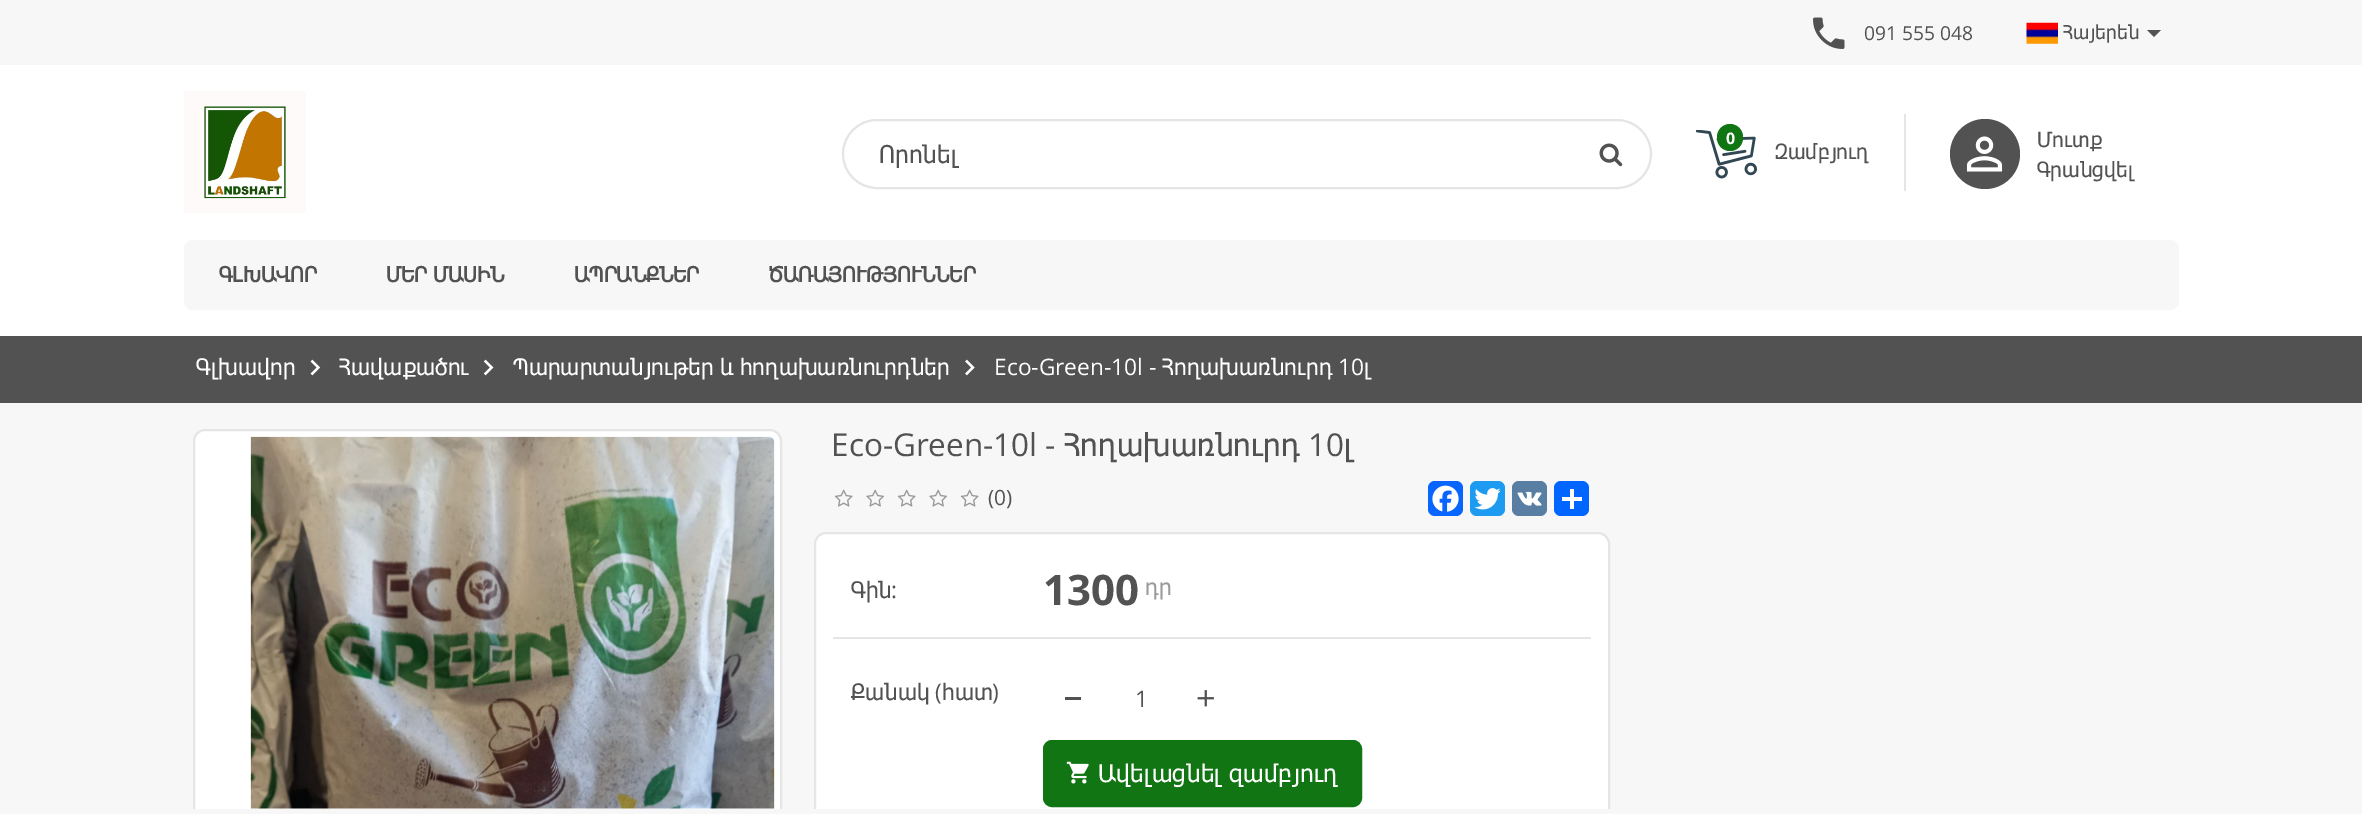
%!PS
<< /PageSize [2362 814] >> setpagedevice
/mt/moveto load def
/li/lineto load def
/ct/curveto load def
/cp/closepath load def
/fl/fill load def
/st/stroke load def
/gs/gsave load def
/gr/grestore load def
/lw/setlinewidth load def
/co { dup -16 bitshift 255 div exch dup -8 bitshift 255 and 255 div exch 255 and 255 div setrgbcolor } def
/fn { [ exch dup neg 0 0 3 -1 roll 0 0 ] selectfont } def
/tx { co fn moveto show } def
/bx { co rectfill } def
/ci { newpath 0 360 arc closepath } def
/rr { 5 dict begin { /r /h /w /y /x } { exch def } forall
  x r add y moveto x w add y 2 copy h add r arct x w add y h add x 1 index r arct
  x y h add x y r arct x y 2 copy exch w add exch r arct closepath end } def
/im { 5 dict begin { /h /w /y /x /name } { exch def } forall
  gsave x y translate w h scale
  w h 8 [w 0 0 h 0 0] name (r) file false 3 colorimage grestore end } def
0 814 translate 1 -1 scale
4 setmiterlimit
0 0 2362 814 16#F7F7F7 bx
(media/1.raw) 1813 17 32 32 im
(media/2.raw) 2026 22 32 22 im
16#525252 co
2147 30 mt 2161 30 li 2154 37 li cp fl
0 65 2362 271 16#FFFFFF bx
(media/3.raw) 184 91 122 122 im
16#E5E5E5 co
2 lw
843 120 808 68 34 rr st
(media/4.raw) 1599 143 24 24 im
1904 114 2 77 16#E5E5E5 bx
(media/5.raw) 1696 130 61 49 im
16#107512 co
1717 124 26 27 13 rr fl
16#525252 co
1985 154 35 ci fl
(media/6.raw) 1966 136 37 36 im
16#F7F7F7 co
184 240 1995 70 9 rr fl
0 336 2362 67 16#525252 bx
(media/7.raw) 310 359 11 17 im
(media/8.raw) 483 359 11 17 im
(media/9.raw) 965 359 10 17 im
16#FFFFFF co
205 429 mt 770 429 li 776.5 429 782 434.5 782 441 ct 782 809 li 193 809 li 193 441 li 193 434.5 198.5 429 205 429 ct cp fl
gs
0 0 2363 809 rectclip
16#E5E5E5 co
194 430 587 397 11 rr st
gr
(media/10.raw) 250 436 525 373 im
(media/11.raw) 834 489 19 18 im
(media/12.raw) 866 489 18 18 im
(media/11.raw) 897 489 19 18 im
(media/12.raw) 929 489 18 18 im
(media/11.raw) 960 489 19 18 im
16#0866FF co
1428 481 35 35 7 rr fl
(media/13.raw) 1432 485 27 27 im
16#1D9BF0 co
1470 481 35 35 7 rr fl
(media/14.raw) 1474 488 27 22 im
16#587EA3 co
1512 481 35 35 7 rr fl
(media/15.raw) 1517 491 25 15 im
16#0166FF co
1554 481 35 35 7 rr fl
1570 489 4 20 16#FFFFFF bx
1562 497 20 4 16#FFFFFF bx
826 532 mt 1598 532 li 1604.5 532 1610 537.5 1610 544 ct 1610 809 li 814 809 li 814 544 li 814 537.5 819.5 532 826 532 ct cp fl
gs
0 0 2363 809 rectclip
16#E5E5E5 co
815 533 794 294 11 rr st
gr
833 637 758 2 16#E5E5E5 bx
1065 697 16 3 16#525252 bx
(media/16.raw) 1197 690 17 17 im
16#107512 co
1044 741 317 65 8 rr gs fl gr
st
(media/17.raw) 1066 761 23 23 im
(091 555 048) 1864 40 /OpenSans-Regular 19.25 16#525252 tx
(Հայերեն) 2063 39 /Tahoma-Regular 19.25 16#525252 tx
(Որոնել) 879 163 /Tahoma-Regular 24.5 16#525252 tx
(0) 1726 144 /OpenSans-Bold 16 16#FFFFFF tx
(Զամբյուղ) 1775 159 /Tahoma-Regular 21 16#525252 tx
(Մուտք) 2037 147 /Tahoma-Regular 21 16#525252 tx
(Գրանցվել) 2037 177 /Tahoma-Regular 21 16#525252 tx
(ԳԼԽԱՎՈՐ) 219 282 /Tahoma-Bold 21 16#525252 tx
386 282 mt -1 0 32 (ՄԵՐ ՄԱՍԻՆ) widthshow
(ԱՊՐԱՆՔՆԵՐ) 574 282 /Tahoma-Bold 21 16#525252 tx
(ԾԱՌԱՅՈՒԹՅՈՒՆՆԵՐ) 769 282 /Tahoma-Bold 21 16#525252 tx
(Գլխավոր) 196 375 /Tahoma-Regular 22.75 16#FFFFFF tx
(Հավաքածու) 339 375 /Tahoma-Regular 22.75 16#FFFFFF tx
513 375 mt -1 0 32 (Պարարտանյութեր և հողախառնուրդներ) widthshow
(Eco-Green-10l -) 994 375 /OpenSans-Regular 22.75 16#FFFFFF tx
(Հողախառնուրդ) 1162 375 /Tahoma-Regular 22.75 16#FFFFFF tx
(10) 1338 375 /OpenSans-Regular 22.75 16#FFFFFF tx
(լ) 1364 375 /Tahoma-Regular 22.75 16#FFFFFF tx
(Eco-Green-10l -) 831 456 /OpenSans-Regular 31.5 16#525252 tx
(Հողախառնուրդ) 1064 456 /Tahoma-Regular 31.5 16#525252 tx
(10) 1308 456 /OpenSans-Regular 31.5 16#525252 tx
(լ) 1344 456 /Tahoma-Regular 31.5 16#525252 tx
(\(0\)) 988 505 /OpenSans-Regular 21 16#525252 tx
(Գին) 851 598 /Tahoma-Regular 22.75 16#525252 tx
(:) 891 598 /OpenSans-Regular 22.75 16#525252 tx
(1300) 1043 605 /OpenSans-Bold 42 16#525252 tx
(դր) 1145 595 /Tahoma-Regular 22.75 16#999999 tx
(Քանակ) 851 700 /Tahoma-Regular 22.75 16#525252 tx
(\() 935 700 /OpenSans-Regular 22.75 16#525252 tx
(հատ) 942 700 /Tahoma-Regular 22.75 16#525252 tx
(\)) 992 700 /OpenSans-Regular 22.75 16#525252 tx
(1) 1135 707 /OpenSans-Regular 22.75 16#525252 tx
/Tahoma-Regular 24.5 fn
16#FFFFFF co
1098 782 mt -1 0 32 (Ավելացնել զամբյուղ) widthshow
showpage
